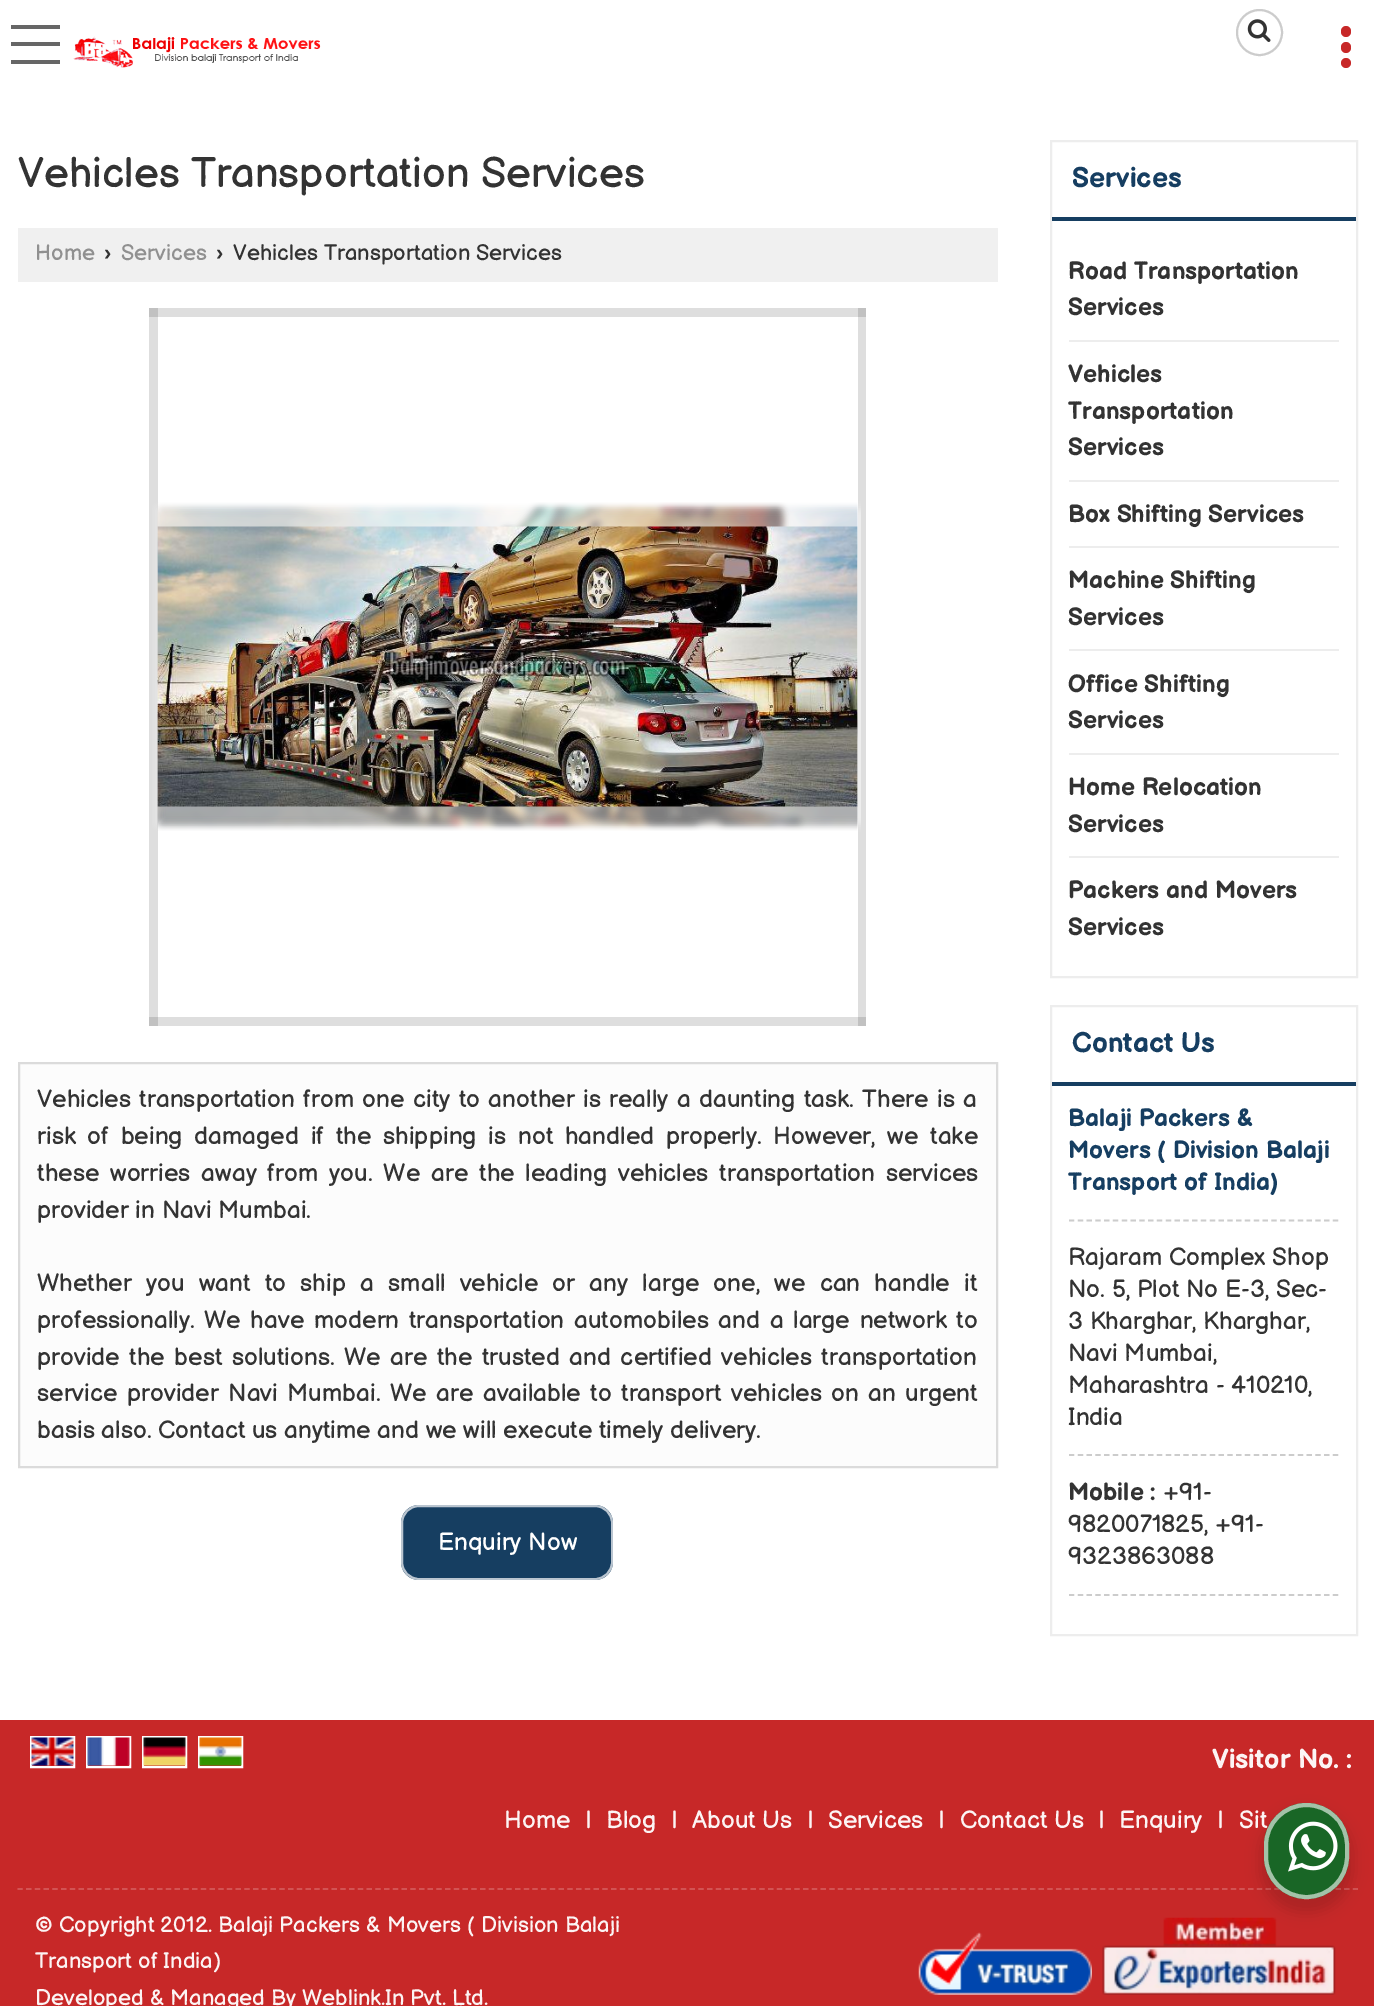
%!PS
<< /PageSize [1374 2006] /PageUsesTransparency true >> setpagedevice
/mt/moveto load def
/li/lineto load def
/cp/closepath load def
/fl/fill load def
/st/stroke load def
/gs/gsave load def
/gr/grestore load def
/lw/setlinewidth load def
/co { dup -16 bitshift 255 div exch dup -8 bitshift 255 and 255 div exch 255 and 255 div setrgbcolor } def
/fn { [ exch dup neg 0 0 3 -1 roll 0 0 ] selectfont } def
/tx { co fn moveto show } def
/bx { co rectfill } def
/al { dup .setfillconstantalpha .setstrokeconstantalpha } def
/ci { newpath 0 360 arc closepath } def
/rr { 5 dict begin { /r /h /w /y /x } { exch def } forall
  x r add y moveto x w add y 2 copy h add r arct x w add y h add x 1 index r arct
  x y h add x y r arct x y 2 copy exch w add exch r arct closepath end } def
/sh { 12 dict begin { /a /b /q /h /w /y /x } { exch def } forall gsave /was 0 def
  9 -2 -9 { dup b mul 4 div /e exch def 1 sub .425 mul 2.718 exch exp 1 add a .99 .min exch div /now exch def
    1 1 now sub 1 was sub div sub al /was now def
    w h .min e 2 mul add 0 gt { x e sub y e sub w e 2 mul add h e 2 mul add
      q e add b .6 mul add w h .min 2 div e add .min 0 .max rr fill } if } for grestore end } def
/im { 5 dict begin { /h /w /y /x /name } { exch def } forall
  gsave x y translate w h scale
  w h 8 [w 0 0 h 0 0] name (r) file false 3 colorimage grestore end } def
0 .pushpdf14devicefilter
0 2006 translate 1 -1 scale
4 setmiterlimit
0 0 1374 2006 16#FFFFFF bx
149 317 9 700 16#DEDEDE bx
158 1017 700 9 16#DEDEDE bx
149 1017 9 9 16#C1C1C1 bx
858 317 8 700 16#DEDEDE bx
858 1017 8 9 16#C1C1C1 bx
11 42 49 4 16#666666 bx
11 25 49 4 16#666666 bx
11 60 49 4 16#666666 bx
16#CCCCCC co
2 lw
1259.5 32.5 22.5 ci st
(media/1.raw) 1247 19 24 23 im
(media/2.raw) 73 36 248 32 im
16#C72828 co
1341 42 10 11 5 rr fl
1341 26 10 11 5 rr fl
1346 63 5 ci fl
18 228 980 54 16#F0F0F0 bx
158 308 700 9 16#DEDEDE bx
149 308 9 9 16#C1C1C1 bx
858 308 8 9 16#C1C1C1 bx
(media/3.raw) 157 502 701 329 im
gs
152 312 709 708 rectclip
16#FFFFFF co
158 509 717 315 0 3.5 .5 sh
gr
(media/4.raw) 157 526 701 281 im
16#FCFCFC co
19 1063 mt 997 1063 li 997 1467 li 19 1467 li cp gs fl gr
16#DBDBDB co
st
16#163E61 co
401 1505 212 75 18 rr fl
0.7 al
16#FFFFFF co
402 1506 210 73 17 rr st
1 al
16#EDEDED co
1051 141 306 836 rectstroke
1052 217 304 4 16#163E61 bx
1069 340 270 2 16#EDEDED bx
1069 480 270 2 16#EDEDED bx
1069 546 270 2 16#EDEDED bx
1069 649 270 2 16#EDEDED bx
1069 753 270 2 16#EDEDED bx
1069 856 270 2 16#EDEDED bx
1051 1006 306 629 rectstroke
1052 1082 304 4 16#163E61 bx
16#CCCCCC co
1.8 lw
[5.25 3.55] 0 setdash
1069 1220.5 mt 1339 1220.5 li st
1069 1455 mt 1339 1455 li st
1069 1595 mt 1339 1595 li st
0 1720 1374 286 16#C72828 bx
16#FFFFFF co
2 lw
[] 0 setdash
31 1737 43 30 rectstroke
87 1737 43 30 rectstroke
143 1737 43 30 rectstroke
199 1737 43 30 rectstroke
(media/5.raw) 31 1737 43 29 im
(media/6.raw) 87 1737 43 29 im
(media/7.raw) 143 1737 43 29 im
(media/8.raw) 199 1737 43 29 im
16#D25353 co
1.8 lw
[5.25 3.48] 0 setdash
17.5 1889 mt 1358 1889 li st
(media/9.raw) 918 1932 174 63 im
(media/10.raw) 1102 1917 234 78 im
16#000000 co
1260 1810 93 103 46.5 7 .14 sh
(Vehicles Transportation Services) 18 187 /BalsamiqSans-Regular 42 16#333333 tx
(Home) 35 260 /BalsamiqSans-Regular 22.05 16#909090 tx
(›) 104 260 /LiberationSans-Bold 22.05 16#333333 tx
(Services) 121 260 /BalsamiqSans-Regular 22.05 16#909090 tx
(›) 216 260 /LiberationSans-Bold 22.05 16#333333 tx
(Vehicles Transportation Services) 233 260 /BalsamiqSans-Regular 22.05 16#333333 tx
/BalsamiqSans-Regular 24.5 fn
37 1107 mt 1.75 0 32 (Vehicles transportation from one city to another is really a daunting task. There is a) widthshow
37 1144 mt 5.1 0 32 (risk of being damaged if the shipping is not handled properly. However, we take) widthshow
37 1181 mt 4.25 0 32 (these worries away from you. We are the leading vehicles transportation services) widthshow
(provider in Navi Mumbai.) 37 1218 /BalsamiqSans-Regular 24.5 16#333333 tx
37 1291 mt 7.6 0 32 (Whether you want to ship a small vehicle or any large one, we can handle it) widthshow
37 1328 mt 3 0 32 (professionally. We have modern transportation automobiles and a large network to) widthshow
37 1365 mt 2.75 0 32 (provide the best solutions. We are the trusted and certified vehicles transportation) widthshow
37 1401 mt 2.75 0 32 (service provider Navi Mumbai. We are available to transport vehicles on an urgent) widthshow
(basis also. Contact us anytime and we will execute timely delivery.) 37 1438 /BalsamiqSans-Regular 24.5 16#333333 tx
(Enquiry Now) 438 1550 /BalsamiqSans-Regular 24.5 16#FFFFFF tx
(Services) 1072 187 /BalsamiqSans-Bold 28 16#163E61 tx
(Road Transportation) 1068 279 /BalsamiqSans-Bold 24.5 16#333333 tx
(Services) 1068 315 /BalsamiqSans-Bold 24.5 16#333333 tx
(Vehicles) 1068 382 /BalsamiqSans-Bold 24.5 16#333333 tx
(Transportation) 1068 419 /BalsamiqSans-Bold 24.5 16#333333 tx
(Services) 1068 455 /BalsamiqSans-Bold 24.5 16#333333 tx
(Box Shifting Services) 1068 522 /BalsamiqSans-Bold 24.5 16#333333 tx
(Machine Shifting) 1068 588 /BalsamiqSans-Bold 24.5 16#333333 tx
(Services) 1068 625 /BalsamiqSans-Bold 24.5 16#333333 tx
(Office Shifting) 1068 692 /BalsamiqSans-Bold 24.5 16#333333 tx
(Services) 1068 728 /BalsamiqSans-Bold 24.5 16#333333 tx
(Home Relocation) 1068 795 /BalsamiqSans-Bold 24.5 16#333333 tx
(Services) 1068 832 /BalsamiqSans-Bold 24.5 16#333333 tx
(Packers and Movers) 1068 898 /BalsamiqSans-Bold 24.5 16#333333 tx
(Services) 1068 935 /BalsamiqSans-Bold 24.5 16#333333 tx
(Contact Us) 1072 1052 /BalsamiqSans-Bold 28 16#163E61 tx
(Balaji Packers &) 1068 1126 /BalsamiqSans-Bold 24.5 16#163E61 tx
(Movers \( Division Balaji) 1068 1158 /BalsamiqSans-Bold 24.5 16#163E61 tx
(Transport of India\)) 1068 1190 /BalsamiqSans-Bold 24.5 16#163E61 tx
(Rajaram Complex Shop) 1068 1265 /BalsamiqSans-Regular 24.5 16#333333 tx
(No. 5, Plot No E-3, Sec-) 1068 1297 /BalsamiqSans-Regular 24.5 16#333333 tx
(3 Kharghar, Kharghar,) 1068 1329 /BalsamiqSans-Regular 24.5 16#333333 tx
(Navi Mumbai,) 1068 1361 /BalsamiqSans-Regular 24.5 16#333333 tx
(Maharashtra - 410210,) 1068 1393 /BalsamiqSans-Regular 24.5 16#333333 tx
(India) 1068 1425 /BalsamiqSans-Regular 24.5 16#333333 tx
(Mobile :) 1068 1500 /BalsamiqSans-Bold 24.5 16#333333 tx
(+91-) 1163 1500 /BalsamiqSans-Regular 24.5 16#333333 tx
(9820071825, +91-) 1068 1532 /BalsamiqSans-Regular 24.5 16#333333 tx
(9323863088) 1068 1564 /BalsamiqSans-Regular 24.5 16#333333 tx
(Visitor No. :) 1212 1768 /BalsamiqSans-Bold 27 16#FCF4F4 tx
(Home) 504 1828 /BalsamiqSans-Regular 24.5 16#FCF4F4 tx
(|) 586 1828 /BalsamiqSans-Regular 24.5 16#FCF4F4 tx
(Blog) 606 1828 /BalsamiqSans-Regular 24.5 16#FCF4F4 tx
(|) 672 1828 /BalsamiqSans-Regular 24.5 16#FCF4F4 tx
(About Us) 692 1828 /BalsamiqSans-Regular 24.5 16#FCF4F4 tx
(|) 808 1828 /BalsamiqSans-Regular 24.5 16#FCF4F4 tx
(Services) 828 1828 /BalsamiqSans-Regular 24.5 16#FCF4F4 tx
(|) 939 1828 /BalsamiqSans-Regular 24.5 16#FCF4F4 tx
(Contact Us) 960 1828 /BalsamiqSans-Regular 24.5 16#FCF4F4 tx
(|) 1099 1828 /BalsamiqSans-Regular 24.5 16#FCF4F4 tx
(Enquiry) 1119 1828 /BalsamiqSans-Regular 24.5 16#FCF4F4 tx
(|) 1218 1828 /BalsamiqSans-Regular 24.5 16#FCF4F4 tx
(Sit) 1239 1828 /BalsamiqSans-Regular 24.5 16#FCF4F4 tx
(© Copyright 2012. Balaji Packers & Movers \( Division Balaji) 35 1932 /BalsamiqSans-Regular 22.05 16#FCF4F4 tx
(Transport of India\)) 35 1968 /BalsamiqSans-Regular 22.05 16#FCF4F4 tx
(Developed & Managed By Weblink.In Pvt. Ltd.) 35 2005 /BalsamiqSans-Regular 22.05 16#FCF4F4 tx
16#196626 co
1264 1803 85 96 42.5 rr fl
0.6 al
16#FFFFFF co
4 lw
[] 0 setdash
1266 1805 81 92 40.5 rr st
1 al
(media/11.raw) 1288 1821 50 51 im
.poppdf14devicefilter showpage
